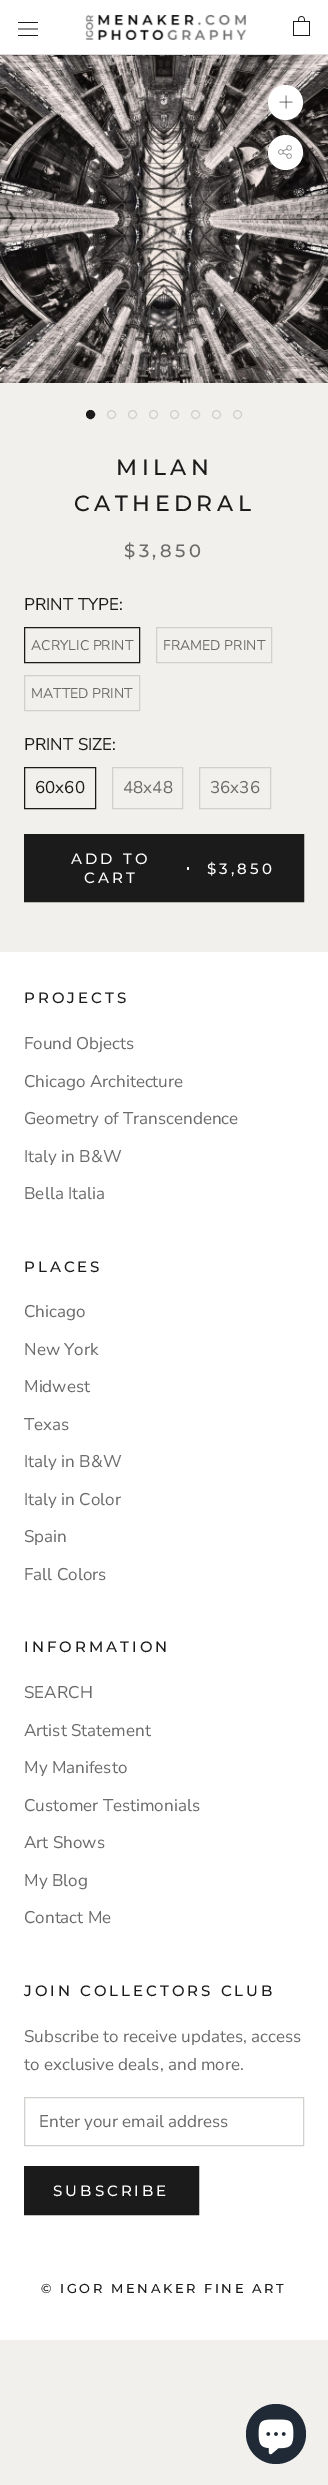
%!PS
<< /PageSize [328 2485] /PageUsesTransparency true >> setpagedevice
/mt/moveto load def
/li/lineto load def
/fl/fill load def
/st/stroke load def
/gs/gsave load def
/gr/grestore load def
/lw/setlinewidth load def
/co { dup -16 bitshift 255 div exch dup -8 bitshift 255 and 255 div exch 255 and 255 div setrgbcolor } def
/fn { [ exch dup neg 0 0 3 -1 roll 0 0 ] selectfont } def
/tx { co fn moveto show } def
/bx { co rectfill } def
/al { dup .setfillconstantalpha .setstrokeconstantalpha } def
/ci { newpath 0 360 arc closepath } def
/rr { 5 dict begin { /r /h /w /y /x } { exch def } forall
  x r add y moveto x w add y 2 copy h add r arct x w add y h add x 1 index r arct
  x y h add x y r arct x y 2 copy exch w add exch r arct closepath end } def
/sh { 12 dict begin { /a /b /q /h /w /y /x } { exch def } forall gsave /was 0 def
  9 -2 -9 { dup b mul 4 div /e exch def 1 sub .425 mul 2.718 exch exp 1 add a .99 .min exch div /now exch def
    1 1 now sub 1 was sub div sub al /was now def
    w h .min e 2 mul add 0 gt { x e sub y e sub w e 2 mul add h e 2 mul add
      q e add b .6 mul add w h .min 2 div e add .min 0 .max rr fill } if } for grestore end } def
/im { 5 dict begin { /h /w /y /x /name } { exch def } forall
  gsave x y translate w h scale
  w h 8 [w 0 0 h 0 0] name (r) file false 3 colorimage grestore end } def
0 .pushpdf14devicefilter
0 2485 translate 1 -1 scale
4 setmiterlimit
0 0 328 2485 16#F2F0EC bx
0 0 328 54 16#FFFFFF bx
0 54 328 1 16#DDDDDD bx
(media/1.raw) 18 22 20 14 im
(media/2.raw) 85 15 161 25 im
(media/3.raw) 293 16 17 20 im
(media/4.raw) 0 55 328 328 im
16#1C1B1B co
90.5 414.5 4 ci gs fl gr
st
16#D2D0CD co
111.5 414.5 4 ci st
132.5 414.5 4 ci st
153.5 414.5 4 ci st
174.5 414.5 4 ci st
195.5 414.5 4 ci st
216.5 414.5 4 ci st
237.5 414.5 4 ci st
16#363636 co
268 86 35 35 17.5 2.5 .15 sh
16#FFFFFF co
285.5 102.5 17.5 ci fl
16#8E8D8D co
.9 lw
2 setlinecap
286 96 mt 286 108 li st
0.5 al
16#1C1B1B co
280 102 mt 292 102 li st
1 al
16#363636 co
268 136 35 35 17.5 2.5 .15 sh
16#FFFFFF co
285.5 152.5 17.5 ci fl
(media/5.raw) 278 145 14 14 im
16#1C1B1B co
1 lw
0 setlinecap
24.5 627.5 115 35 rectstroke
16#D2D0CD co
156.5 627.5 115 35 rectstroke
24.5 675.5 115 35 rectstroke
16#1C1B1B co
24.5 767.5 71 41 rectstroke
16#D2D0CD co
112.5 767.5 70 41 rectstroke
199.5 767.5 71 41 rectstroke
16#1C1B1B co
24.5 834.5 279 67 rectstroke
25 835 278 66 16#1C1B1B bx
16#FFFFFF co
187 867 2 3 1 rr fl
0 952 328 1388 16#FFFFFF bx
16#D2D0CD co
24.5 2097.5 279 48 rectstroke
16#1C1B1B co
24.5 2166.5 174 48 rectstroke
25 2167 173 47 16#1C1B1B bx
16#202A36 co
276 2434 30 ci fl
(media/6.raw) 258 2419 36 36 im
/Montserrat-Medium 22 fn
16#1C1B1B co
116 475 mt 4.5 0 (MILAN) ashow
74 511 mt 4.5 0 (CATHEDRAL) ashow
/Montserrat-Medium 18 fn
16#6A6A6A co
124 557 mt 3.5 0 ($3,850) ashow
(PRINT TYPE:) 24 610 /NunitoSans-Regular 17 16#1C1B1B tx
(ACRYLIC PRINT) 31 650 /NunitoSans-Regular 14 16#6A6A6A tx
(FRAMED PRINT) 163 650 /NunitoSans-Regular 14 16#6A6A6A tx
(MATTED PRINT) 31 698 /NunitoSans-Regular 14 16#6A6A6A tx
(PRINT SIZE:) 24 750 /NunitoSans-Regular 17 16#1C1B1B tx
(60x60) 35 793 /NunitoSans-Regular 17 16#1C1B1B tx
(48x48) 123 793 /NunitoSans-Regular 17 16#6A6A6A tx
(36x36) 210 793 /NunitoSans-Regular 17 16#6A6A6A tx
/Montserrat-Medium 15 fn
16#FFFFFF co
71 864 mt 3 0 (ADD TO) ashow
84 883 mt 3 0 (CART) ashow
207 874 mt 3 0 ($3,850) ashow
16#1C1B1B co
24 1003 mt 3 0 (PROJECTS) ashow
(Found Objects) 24 1049 /NunitoSans-Regular 17 16#6A6A6A tx
(Chicago Architecture) 24 1087 /NunitoSans-Regular 17 16#6A6A6A tx
(Geometry of Transcendence) 24 1124 /NunitoSans-Regular 17 16#6A6A6A tx
(Italy in B&W) 24 1162 /NunitoSans-Regular 17 16#6A6A6A tx
(Bella Italia) 24 1199 /NunitoSans-Regular 17 16#6A6A6A tx
/Montserrat-Medium 15 fn
16#1C1B1B co
24 1272 mt 3 0 (PLACES) ashow
(Chicago) 24 1317 /NunitoSans-Regular 17 16#6A6A6A tx
(New York) 24 1355 /NunitoSans-Regular 17 16#6A6A6A tx
(Midwest) 24 1392 /NunitoSans-Regular 17 16#6A6A6A tx
(Texas) 24 1430 /NunitoSans-Regular 17 16#6A6A6A tx
(Italy in B&W) 24 1467 /NunitoSans-Regular 17 16#6A6A6A tx
(Italy in Color) 24 1505 /NunitoSans-Regular 17 16#6A6A6A tx
(Spain) 24 1542 /NunitoSans-Regular 17 16#6A6A6A tx
(Fall Colors) 24 1580 /NunitoSans-Regular 17 16#6A6A6A tx
/Montserrat-Medium 15 fn
16#1C1B1B co
24 1652 mt 3 0 (INFORMATION) ashow
(SEARCH) 24 1698 /NunitoSans-Regular 17 16#6A6A6A tx
(Artist Statement) 24 1736 /NunitoSans-Regular 17 16#6A6A6A tx
(My Manifesto) 24 1773 /NunitoSans-Regular 17 16#6A6A6A tx
(Customer Testimonials) 24 1811 /NunitoSans-Regular 17 16#6A6A6A tx
(Art Shows) 24 1848 /NunitoSans-Regular 17 16#6A6A6A tx
(My Blog) 24 1886 /NunitoSans-Regular 17 16#6A6A6A tx
(Contact Me) 24 1923 /NunitoSans-Regular 17 16#6A6A6A tx
/Montserrat-Medium 15 fn
16#1C1B1B co
24 1996 mt 3 0 (JOIN COLLECTORS CLUB) ashow
(Subscribe to receive updates, access) 24 2042 /NunitoSans-Regular 17 16#6A6A6A tx
(to exclusive deals, and more.) 24 2070 /NunitoSans-Regular 17 16#6A6A6A tx
(Enter your email address) 39 2127 /NunitoSans-Regular 17 16#6A6A6A tx
/Montserrat-Medium 15 fn
16#FFFFFF co
53 2196 mt 3 0 (SUBSCRIBE) ashow
/Montserrat-Medium 13 fn
16#1C1B1B co
41 2293 mt 2.6 0 (© IGOR MENAKER FINE ART) ashow
.poppdf14devicefilter showpage
